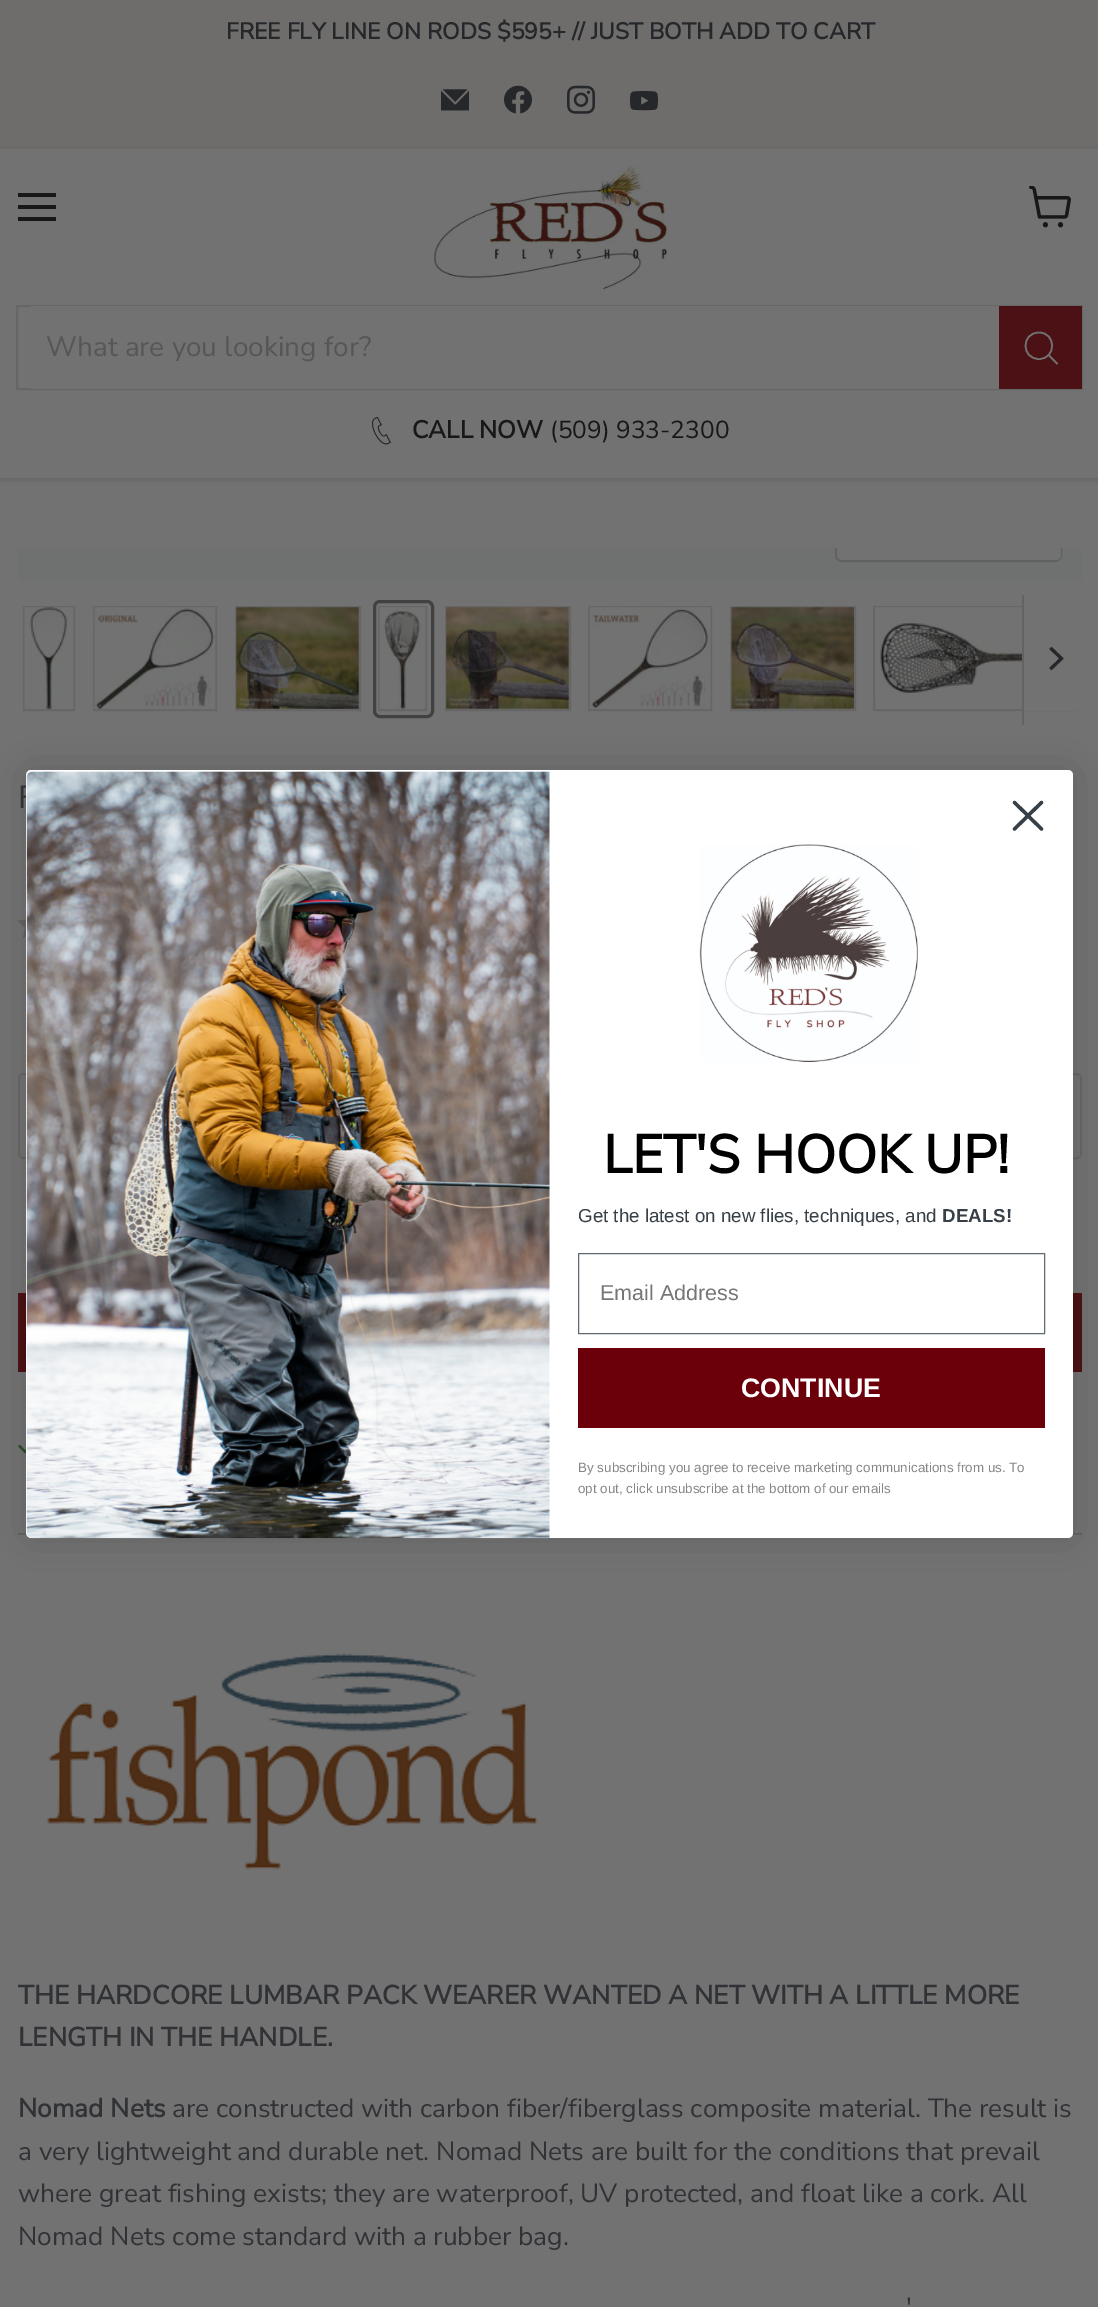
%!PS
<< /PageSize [1098 2307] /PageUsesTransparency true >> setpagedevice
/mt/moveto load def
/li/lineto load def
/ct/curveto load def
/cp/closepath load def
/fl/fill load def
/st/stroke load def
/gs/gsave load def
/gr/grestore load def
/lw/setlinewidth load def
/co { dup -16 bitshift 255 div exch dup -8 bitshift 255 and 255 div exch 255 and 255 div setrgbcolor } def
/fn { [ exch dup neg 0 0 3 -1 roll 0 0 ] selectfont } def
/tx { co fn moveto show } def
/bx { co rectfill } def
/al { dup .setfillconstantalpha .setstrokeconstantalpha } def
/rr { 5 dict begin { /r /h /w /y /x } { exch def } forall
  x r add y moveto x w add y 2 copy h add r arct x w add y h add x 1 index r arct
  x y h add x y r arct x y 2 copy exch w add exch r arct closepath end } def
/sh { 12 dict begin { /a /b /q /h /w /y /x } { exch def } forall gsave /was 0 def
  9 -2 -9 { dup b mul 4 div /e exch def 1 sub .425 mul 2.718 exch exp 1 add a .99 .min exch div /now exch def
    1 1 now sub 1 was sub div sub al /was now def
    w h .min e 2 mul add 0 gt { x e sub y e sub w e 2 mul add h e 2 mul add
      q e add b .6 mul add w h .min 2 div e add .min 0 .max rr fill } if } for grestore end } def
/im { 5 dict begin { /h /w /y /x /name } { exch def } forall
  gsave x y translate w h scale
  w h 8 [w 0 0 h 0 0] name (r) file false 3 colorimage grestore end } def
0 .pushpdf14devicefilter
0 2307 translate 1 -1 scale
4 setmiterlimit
0 0 1098 2307 16#727272 bx
0 0 1098 149 16#6E6D6B bx
(media/1.raw) 441 89 28 22 im
(media/2.raw) 504 85 28 29 im
(media/3.raw) 567 85 28 29 im
(media/4.raw) 630 91 28 20 im
16#3F3F3F co
0 151 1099 329 0 3.5 .25 sh
0 149 1098 329 16#727272 bx
18 193 38 4 16#181818 bx
18 205 38 4 16#181818 bx
18 217 38 4 16#181818 bx
(media/5.raw) 1029 186 42 42 im
(media/6.raw) 434 166 233 123 im
16#666666 co
2 lw
17 306 1065 83 rectstroke
16#727272 co
33 306 mt 999 306 li 999 389 li 33 389 li 30 389 28 387 28 384 ct 28 311 li 28 308 30 306 33 306 ct cp fl
999 306 83 83 16#4C1114 bx
16#727272 co
1.6 lw
1039 359 mt 1056.5 359 1056.5 332.5 1039 332.5 ct 1021 332.5 1021 359 1039 359 ct cp 1048 354.5 mt 1057.5 364 li st
(media/7.raw) 371 417 20 28 im
18 548 1064 33 16#6F7070 bx
gs
18 548 1064 33 rectclip
16#606161 co
2 lw
836 512 225 49 6 rr st
gr
0.9 al
16#727272 co
837 548 mt 1061 548 li 1061 555 li 1061 558 1059 560 1056 560 ct 842 560 li 839 560 837 558 837 555 ct cp fl
gs
14 595 1064 126 rectclip
1 al
16#666666 co
2 lw
874 607 205 103 rectstroke
gr
1 al
1024 606 54 105 16#727272 bx
1022 595 2 130 16#636363 bx
16#25272A co
3.1 lw
2 setlinecap
1061.5 658.5 mt 1051.5 649 li 1061.5 658.5 mt 1051.5 668 li st
16#666666 co
2 lw
0 setlinecap
24 607 50 103 rectstroke
(media/8.raw) 24 607 50 102 im
94 607 122 103 rectstroke
(media/9.raw) 94 607 122 102 im
236 607 124 103 rectstroke
(media/10.raw) 236 607 123 102 im
16#414141 co
3 lw
374.5 601.5 58 115 5.5 rr st
16#666666 co
2 lw
379 607 47 103 rectstroke
(media/11.raw) 379 607 47 102 im
446 607 124 103 rectstroke
(media/12.raw) 446 607 123 102 im
589 607 122 103 rectstroke
(media/13.raw) 589 607 122 102 im
731 607 124 103 rectstroke
(media/14.raw) 731 607 123 102 im
(media/15.raw) 875 607 147 87 im
(media/16.raw) 17 919 9 19 im
19 1074 1062 84 4 rr st
18 1293 1064 79 16#4C1114 bx
(media/17.raw) 18 1444 8 10 im
18 1533 1064 2 16#626262 bx
(media/18.raw) 46 1653 492 217 im
16#000000 co
26 770 1047 768 5 20 .15 sh
(FREE FLY LINE ON RODS $595+ // JUST BOTH ADD TO CART) 226 39 /NunitoSans-Bold 23 16#25272A tx
(What are you looking for?) 46 356 /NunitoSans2-Regular 28 16#565656 tx
(CALL NOW) 412 438 /NunitoSans-Bold 24.5 16#181818 tx
(\(509\) 933-2300) 550 438 /NunitoSans-Regular 24.5 16#181818 tx
(F) 18 808 /NunitoSans-Regular 32 16#303236 tx
(THE HARDCORE LUMBAR PACK WEARER WANTED A NET WITH A LITTLE MORE) 18 2004 /NunitoSans-Bold 26.25 16#303236 tx
(LENGTH IN THE HANDLE.) 18 2046 /NunitoSans-Bold 26.25 16#303236 tx
(Nomad Nets) 18 2117 /NunitoSans-Bold 26.25 16#303236 tx
(are constructed with carbon fiber/fiberglass composite material. The result is) 172 2117 /NunitoSans-Regular 26.25 16#303236 tx
(a very lightweight and durable net. Nomad Nets are built for the conditions that prevail) 18 2160 /NunitoSans-Regular 26.25 16#303236 tx
(where great fishing exists; they are waterproof, UV protected, and float like a cork. All) 18 2202 /NunitoSans-Regular 26.25 16#303236 tx
(Nomad Nets come standard with a rubber bag.) 18 2245 /NunitoSans-Regular 26.25 16#303236 tx
(') 906 2316 /NunitoSans-Regular 26.25 16#303236 tx
16#FFFFFF co
26 770 1047 768 5 rr fl
16#373F47 co
3.4 lw
1 setlinecap
1 setlinejoin
1014.5 802.5 mt 1041.5 829 li 1014.5 829 mt 1041.5 802.5 li cp st
(media/19.raw) 26 771 524 768 im
(media/20.raw) 699 844 219 218 im
(LET'S HOOK UP!) 603 1173 /NunitoSans-Bold 53.5 16#000000 tx
(Get the latest on new flies, techniques, and) 578 1222 /LiberationSans-Regular 18.75 16#373F47 tx
(DEALS!) 942 1222 /LiberationSans-Bold 18.75 16#373F47 tx
16#606A72 co
1 lw
0 setlinecap
0 setlinejoin
578.5 1253.5 466 80 rectstroke
(Email Address) 600 1300 /LiberationSans-Regular 21.5 16#767676 tx
578 1348 467 80 16#6B000A bx
(CONTINUE) 741 1397 /LiberationSans-Bold 26.75 16#FFFFFF tx
(By subscribing you agree to receive marketing communications from us. To) 578 1472 /LiberationSans-Regular 13.4 16#868686 tx
(opt out, click unsubscribe at the bottom of our emails) 578 1493 /LiberationSans-Regular 13.4 16#868686 tx
.poppdf14devicefilter showpage
